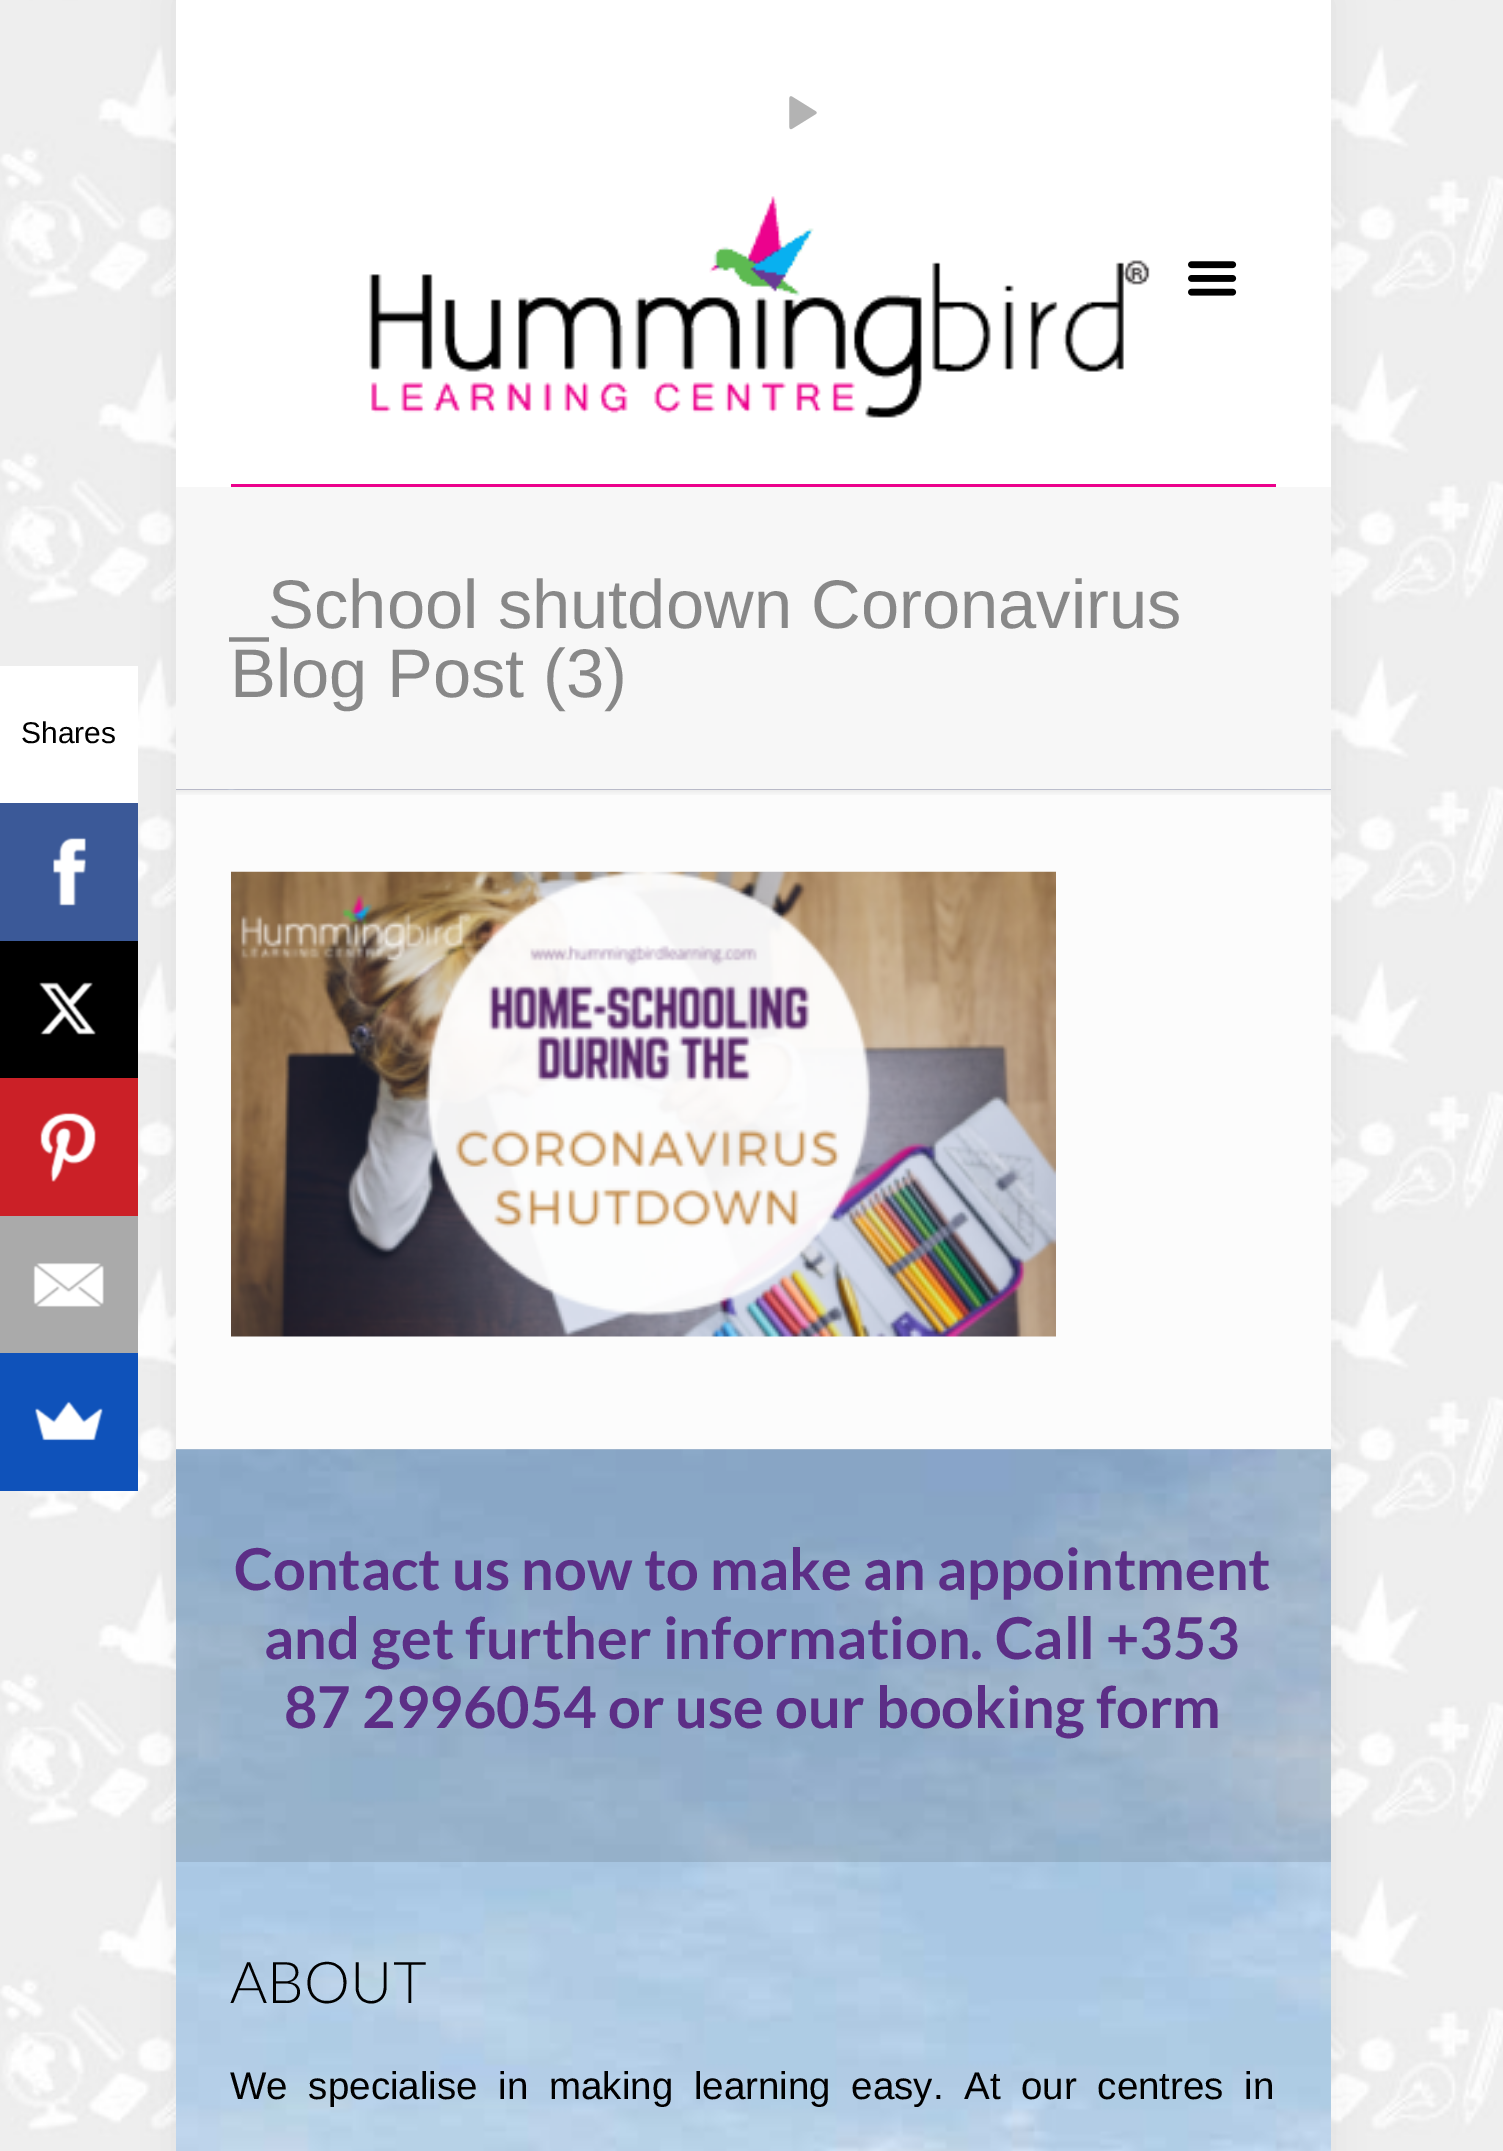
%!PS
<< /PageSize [1503 2151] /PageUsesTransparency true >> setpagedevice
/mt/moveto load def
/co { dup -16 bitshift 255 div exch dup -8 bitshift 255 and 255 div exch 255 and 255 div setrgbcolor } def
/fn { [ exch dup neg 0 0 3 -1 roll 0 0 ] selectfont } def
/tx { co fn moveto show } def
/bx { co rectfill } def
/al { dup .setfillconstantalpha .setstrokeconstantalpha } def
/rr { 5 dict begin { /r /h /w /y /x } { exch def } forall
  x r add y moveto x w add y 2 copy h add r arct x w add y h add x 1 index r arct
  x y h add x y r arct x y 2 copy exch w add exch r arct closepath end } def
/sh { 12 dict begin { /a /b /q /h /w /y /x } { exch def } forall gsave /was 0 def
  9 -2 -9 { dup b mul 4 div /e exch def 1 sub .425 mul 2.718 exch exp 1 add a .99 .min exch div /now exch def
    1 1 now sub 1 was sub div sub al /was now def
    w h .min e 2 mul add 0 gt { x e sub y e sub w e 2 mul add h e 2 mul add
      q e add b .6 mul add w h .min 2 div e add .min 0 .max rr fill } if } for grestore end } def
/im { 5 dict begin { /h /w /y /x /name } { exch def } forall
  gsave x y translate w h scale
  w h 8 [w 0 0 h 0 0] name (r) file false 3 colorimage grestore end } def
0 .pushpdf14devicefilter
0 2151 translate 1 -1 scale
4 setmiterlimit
0 0 1503 2151 16#FFFFFF bx
(media/1.raw) 0 0 1503 2151 im
16#000000 co
176 -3 1155 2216 0 20.5 .06 sh
0 666 138 137 16#FFFFFF bx
0 803 138 138 16#3B5998 bx
(media/2.raw) 53 837 33 69 im
0 941 138 137 16#000000 bx
(media/3.raw) 39 982 57 53 im
0 1078 138 138 16#CB2027 bx
(media/4.raw) 40 1112 56 70 im
0 1216 138 137 16#AAAAAA bx
(media/5.raw) 33 1263 71 44 im
0 1353 138 138 16#0F52BA bx
(media/6.raw) 35 1401 68 40 im
176 789 1155 661 16#FCFCFC bx
(media/7.raw) 176 789 1155 1 im
176 0 1155 487 16#FFFFFF bx
(media/8.raw) 789 96 28 34 im
231 484 1045 3 16#EC008C bx
(media/9.raw) 369 196 781 222 im
(media/10.raw) 1188 261 49 35 im
176 487 1155 302 16#F7F7F7 bx
(media/11.raw) 176 789 1155 6 im
(media/12.raw) 231 871 825 466 im
(media/13.raw) 176 1449 1155 702 im
0.1 al
176 1449 1155 413 16#000000 bx
1 al
(Shares) 21 743 /LiberationSans-Regular 30 16#000000 tx
(_School shutdown Coronavirus) 230 628 /LiberationSans-Regular 68.75 16#888888 tx
(Blog Post \(3\)) 230 697 /LiberationSans-Regular 68.75 16#888888 tx
(Contact us now to make an appointment) 234 1590 /Lato-Bold 57.75 16#5C2E86 tx
(and get further information. Call +353) 264 1659 /Lato-Bold 57.75 16#5C2E86 tx
(87 2996054 or use our booking form) 284 1728 /Lato-Bold 57.75 16#5C2E86 tx
(ABOUT) 230 2003 /Lato-Light 57.75 16#000000 tx
/LiberationSans-Regular 38.5 fn
230 2099 mt 10 0 32 (We specialise in making learning easy. At our centres in) widthshow
.poppdf14devicefilter showpage
